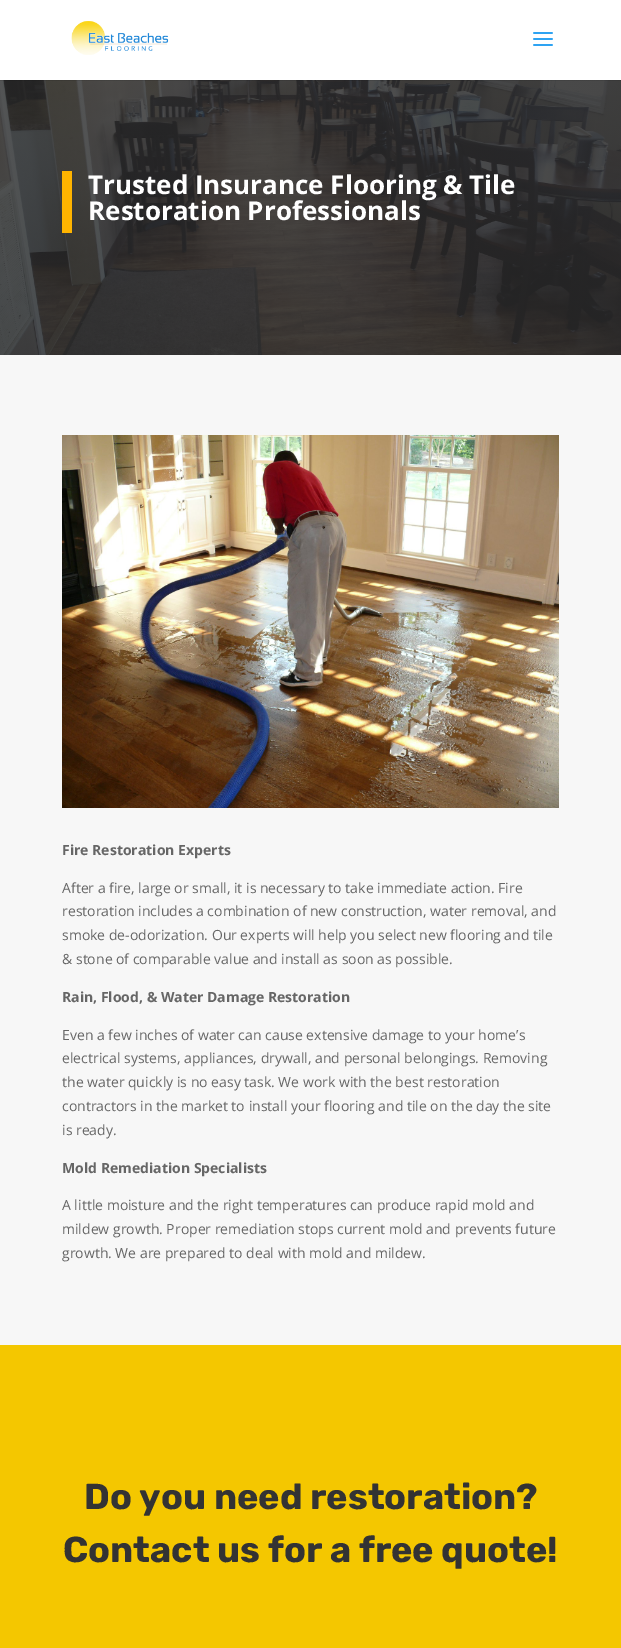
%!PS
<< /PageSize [621 1648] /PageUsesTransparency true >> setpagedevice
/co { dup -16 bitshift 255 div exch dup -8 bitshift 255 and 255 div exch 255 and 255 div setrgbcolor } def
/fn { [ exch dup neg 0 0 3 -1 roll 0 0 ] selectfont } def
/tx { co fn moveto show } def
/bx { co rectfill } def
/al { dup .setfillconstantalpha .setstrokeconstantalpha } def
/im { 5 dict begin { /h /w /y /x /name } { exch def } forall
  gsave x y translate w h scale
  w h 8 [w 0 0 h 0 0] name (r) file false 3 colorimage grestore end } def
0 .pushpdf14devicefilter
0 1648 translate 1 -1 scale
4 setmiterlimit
0 0 621 1648 16#FFFFFF bx
(media/3.raw) 0 80 621 275 im
0.1 al
0 80 621 1 16#000000 bx
1 al
(media/1.raw) 71 21 98 34 im
(media/2.raw) 533 32 20 14 im
62 171 10 62 16#FFB400 bx
0 355 621 990 16#F7F7F7 bx
(media/4.raw) 62 435 497 373 im
0 1345 621 303 16#F4C700 bx
(Trusted Insurance Flooring & Tile) 88 194 /OpenSans-Bold 26 16#FFFFFF tx
(Restoration Professionals) 88 220 /OpenSans-Bold 26 16#FFFFFF tx
(Fire Restoration Experts) 62 855 /OpenSans-Bold 14 16#666666 tx
(After a fire, large or small, it is necessary to take immediate action. Fire) 62 893 /OpenSans-Regular 14 16#666666 tx
(restoration includes a combination of new construction, water removal, and) 62 916 /OpenSans-Regular 14 16#666666 tx
(smoke de-odorization. Our experts will help you select new flooring and tile) 62 940 /OpenSans-Regular 14 16#666666 tx
(& stone of comparable value and install as soon as possible.) 62 964 /OpenSans-Regular 14 16#666666 tx
(Rain, Flood, & Water Damage Restoration) 62 1002 /OpenSans-Bold 14 16#666666 tx
(Even a few inches of water can cause extensive damage to your home’s) 62 1040 /OpenSans-Regular 14 16#666666 tx
(electrical systems, appliances, drywall, and personal belongings. Removing) 62 1063 /OpenSans-Regular 14 16#666666 tx
(the water quickly is no easy task. We work with the best restoration) 62 1087 /OpenSans-Regular 14 16#666666 tx
(contractors in the market to install your flooring and tile on the day the site) 62 1111 /OpenSans-Regular 14 16#666666 tx
(is ready.) 62 1135 /OpenSans-Regular 14 16#666666 tx
(Mold Remediation Specialists) 62 1173 /OpenSans-Bold 14 16#666666 tx
(A little moisture and the right temperatures can produce rapid mold and) 62 1210 /OpenSans-Regular 14 16#666666 tx
(mildew growth. Proper remediation stops current mold and prevents future) 62 1234 /OpenSans-Regular 14 16#666666 tx
(growth. We are prepared to deal with mold and mildew.) 62 1258 /OpenSans-Regular 14 16#666666 tx
(Do you need restoration?) 84 1509 /Rubik-Bold 36 16#333333 tx
(Contact us for a free quote!) 63 1562 /Rubik-Bold 36 16#333333 tx
.poppdf14devicefilter showpage
